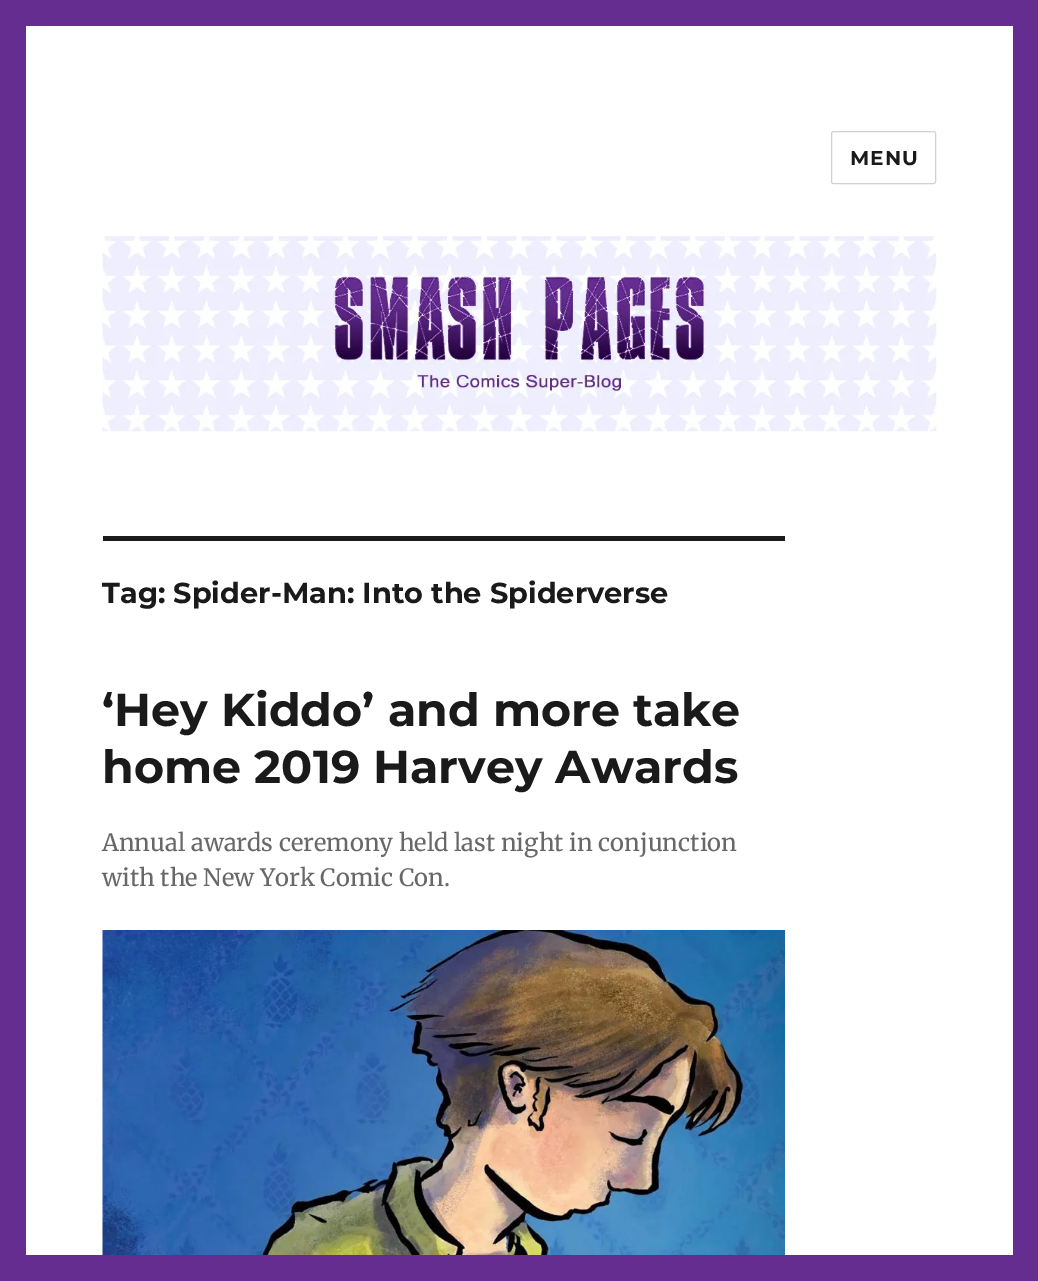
%!PS
<< /PageSize [1038 1281] >> setpagedevice
/mt/moveto load def
/st/stroke load def
/co { dup -16 bitshift 255 div exch dup -8 bitshift 255 and 255 div exch 255 and 255 div setrgbcolor } def
/fn { [ exch dup neg 0 0 3 -1 roll 0 0 ] selectfont } def
/tx { co fn moveto show } def
/bx { co rectfill } def
/rr { 5 dict begin { /r /h /w /y /x } { exch def } forall
  x r add y moveto x w add y 2 copy h add r arct x w add y h add x 1 index r arct
  x y h add x y r arct x y 2 copy exch w add exch r arct closepath end } def
/im { 5 dict begin { /h /w /y /x /name } { exch def } forall
  gsave x y translate w h scale
  w h 8 [w 0 0 h 0 0] name (r) file false 3 colorimage grestore end } def
0 1281 translate 1 -1 scale
4 setmiterlimit
0 0 1038 1281 16#652D90 bx
26 26 987 1229 16#FFFFFF bx
16#D1D1D1 co
831.5 131.5 104 52 2 rr st
(media/1.raw) 102 236 835 196 im
103 536 682 5 16#1A1A1A bx
(media/2.raw) 102 930 683 325 im
/Montserrat-Bold 20 fn
850 165 mt 1 0 (MENU) ashow
(Tag: Spider-Man: Into the Spiderverse) 102 603 /Montserrat-Bold 28.75 16#1A1A1A tx
(‘Hey Kiddo’ and more take) 102 726 /Montserrat-Bold 46 16#1A1A1A tx
(home 2019 Harvey Awards) 102 783 /Montserrat-Bold 46 16#1A1A1A tx
(Annual awards ceremony held last night in conjunction) 102 851 /Merriweather-Regular 23.75 16#686868 tx
(with the New York Comic Con.) 102 886 /Merriweather-Regular 23.75 16#686868 tx
showpage
